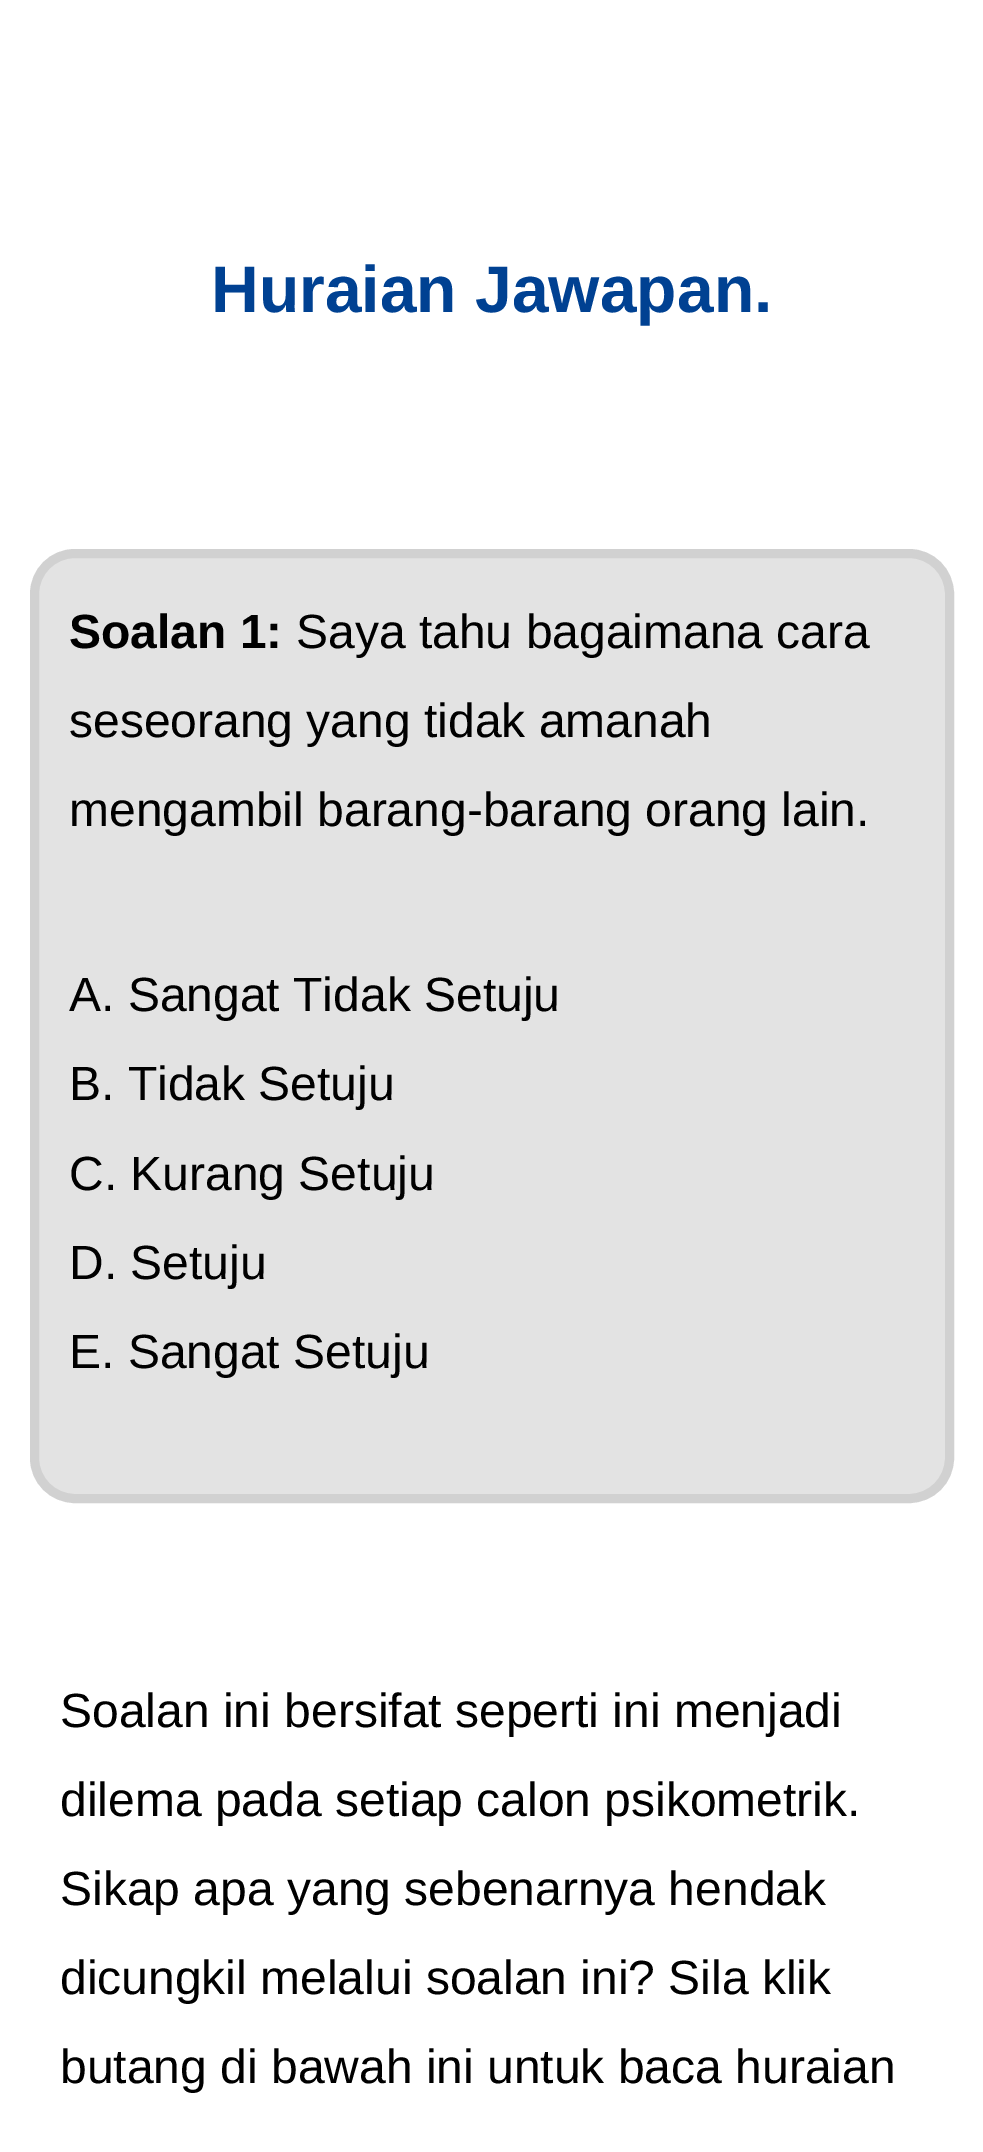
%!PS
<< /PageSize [983 2152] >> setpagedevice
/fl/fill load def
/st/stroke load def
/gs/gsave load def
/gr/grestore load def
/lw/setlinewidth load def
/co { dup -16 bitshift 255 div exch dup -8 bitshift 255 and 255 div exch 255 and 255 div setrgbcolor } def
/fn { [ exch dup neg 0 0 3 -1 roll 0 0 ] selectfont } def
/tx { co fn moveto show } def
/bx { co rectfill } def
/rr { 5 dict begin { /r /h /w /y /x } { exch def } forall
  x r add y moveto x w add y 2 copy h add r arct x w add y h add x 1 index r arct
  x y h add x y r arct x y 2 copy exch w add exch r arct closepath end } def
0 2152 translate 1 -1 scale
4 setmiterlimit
0 0 983 2152 16#FFFFFF bx
16#E3E3E3 co
34.5 553.5 915 945 40.5 rr gs fl gr
16#D1D1D1 co
9 lw
st
(Huraian Jawapan.) 211 312 /LiberationSans-Bold 66 16#004192 tx
(Soalan 1:) 69 648 /LiberationSans-Bold 48 16#000000 tx
(Saya tahu bagaimana cara) 296 648 /LiberationSans-Regular 48 16#000000 tx
(seseorang yang tidak amanah) 69 737 /LiberationSans-Regular 48 16#000000 tx
(mengambil barang-barang orang lain.) 69 826 /LiberationSans-Regular 48 16#000000 tx
(A. Sangat Tidak Setuju) 69 1011 /LiberationSans-Regular 48 16#000000 tx
(B. Tidak Setuju) 69 1100 /LiberationSans-Regular 48 16#000000 tx
(C. Kurang Setuju) 69 1190 /LiberationSans-Regular 48 16#000000 tx
(D. Setuju) 69 1279 /LiberationSans-Regular 48 16#000000 tx
(E. Sangat Setuju) 69 1368 /LiberationSans-Regular 48 16#000000 tx
(Soalan ini bersifat seperti ini menjadi) 60 1727 /LiberationSans-Regular 48 16#000000 tx
(dilema pada setiap calon psikometrik.) 60 1816 /LiberationSans-Regular 48 16#000000 tx
(Sikap apa yang sebenarnya hendak) 60 1905 /LiberationSans-Regular 48 16#000000 tx
(dicungkil melalui soalan ini? Sila klik) 60 1994 /LiberationSans-Regular 48 16#000000 tx
(butang di bawah ini untuk baca huraian) 60 2083 /LiberationSans-Regular 48 16#000000 tx
showpage
